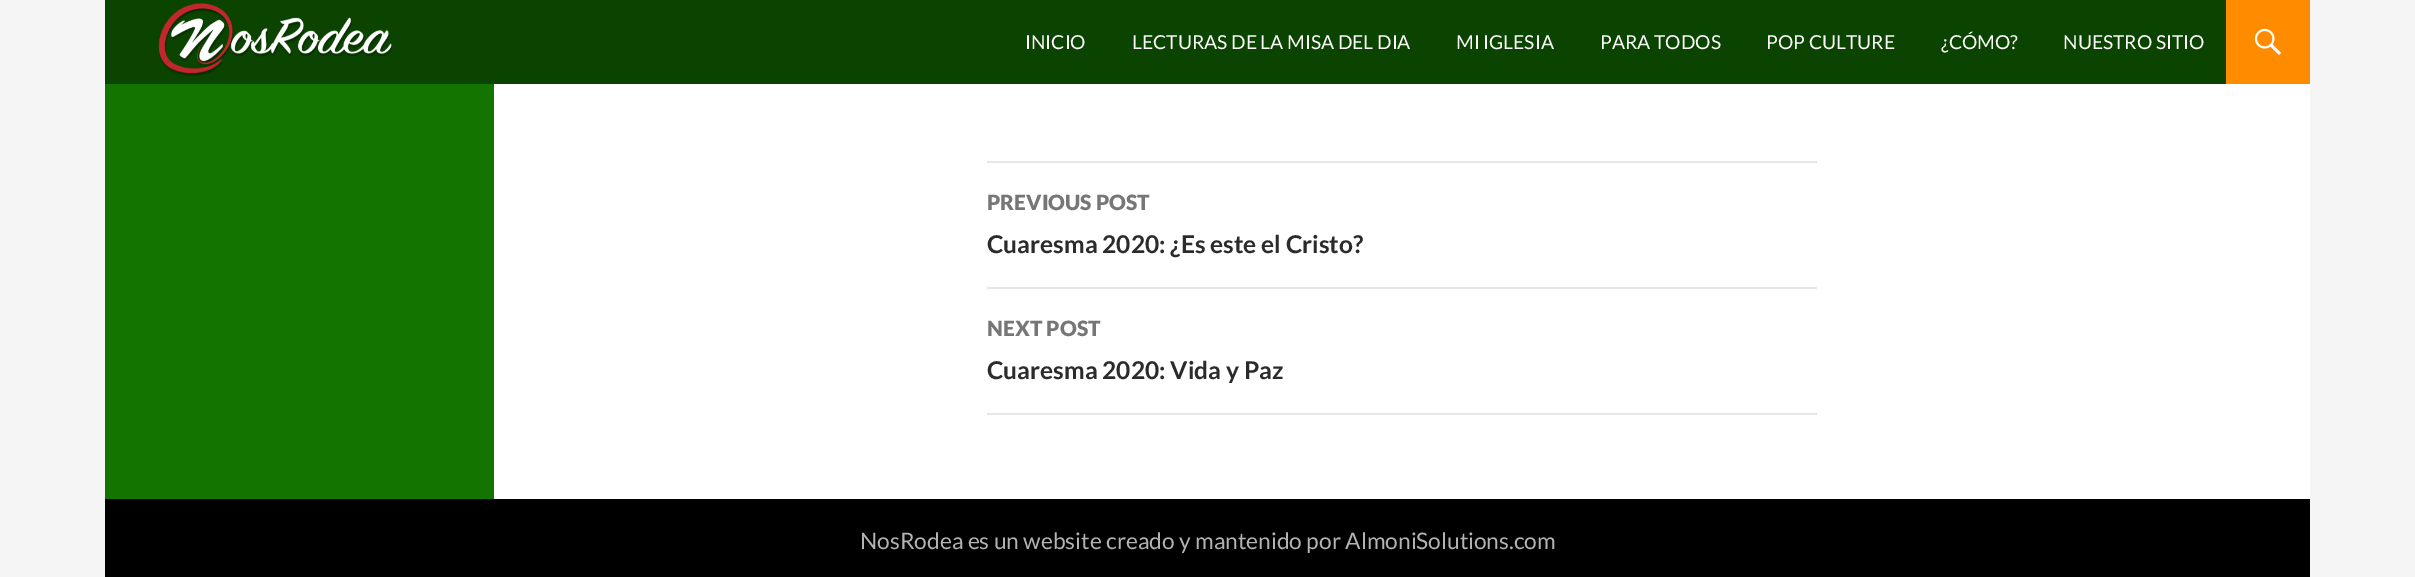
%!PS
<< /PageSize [2415 577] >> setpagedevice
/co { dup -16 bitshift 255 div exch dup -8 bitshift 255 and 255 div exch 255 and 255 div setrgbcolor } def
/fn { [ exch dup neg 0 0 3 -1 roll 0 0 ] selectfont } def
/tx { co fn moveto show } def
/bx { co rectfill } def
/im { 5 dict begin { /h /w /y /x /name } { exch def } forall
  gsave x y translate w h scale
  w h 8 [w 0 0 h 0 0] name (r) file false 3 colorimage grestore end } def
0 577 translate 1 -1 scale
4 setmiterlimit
0 0 2415 577 16#F5F5F5 bx
494 84 1816 415 16#FFFFFF bx
105 0 2121 84 16#0B4400 bx
(media/1.raw) 158 3 234 73 im
2226 0 84 84 16#FF8C00 bx
(media/2.raw) 2254 28 27 27 im
105 84 389 415 16#137500 bx
987 161 830 2 16#E6E6E6 bx
987 287 830 2 16#E6E6E6 bx
987 413 830 2 16#E6E6E6 bx
105 499 2205 78 16#000000 bx
(INICIO) 1025 49 /Lato-Regular 19.25 16#FFFFFF tx
(LECTURAS DE LA MISA DEL DIA) 1132 49 /Lato-Regular 19.25 16#FFFFFF tx
(MI IGLESIA) 1456 49 /Lato-Regular 19.25 16#FFFFFF tx
(PARA TODOS) 1600 49 /Lato-Regular 19.25 16#FFFFFF tx
(POP CULTURE) 1766 49 /Lato-Regular 19.25 16#FFFFFF tx
(¿CÓMO?) 1941 49 /Lato-Regular 19.25 16#FFFFFF tx
(NUESTRO SITIO) 2063 49 /Lato-Regular 19.25 16#FFFFFF tx
(PREVIOUS POST) 987 210 /Lato-Black 21 16#767676 tx
(Cuaresma 2020: ¿Es este el Cristo?) 987 253 /Lato-Bold 24.5 16#2B2B2B tx
(NEXT POST) 987 336 /Lato-Black 21 16#767676 tx
(Cuaresma 2020: Vida y Paz) 987 379 /Lato-Bold 24.5 16#2B2B2B tx
(NosRodea es un website creado y mantenido por AlmoniSolutions.com) 860 549 /Lato-Regular 22.75 16#B3B3B3 tx
showpage
